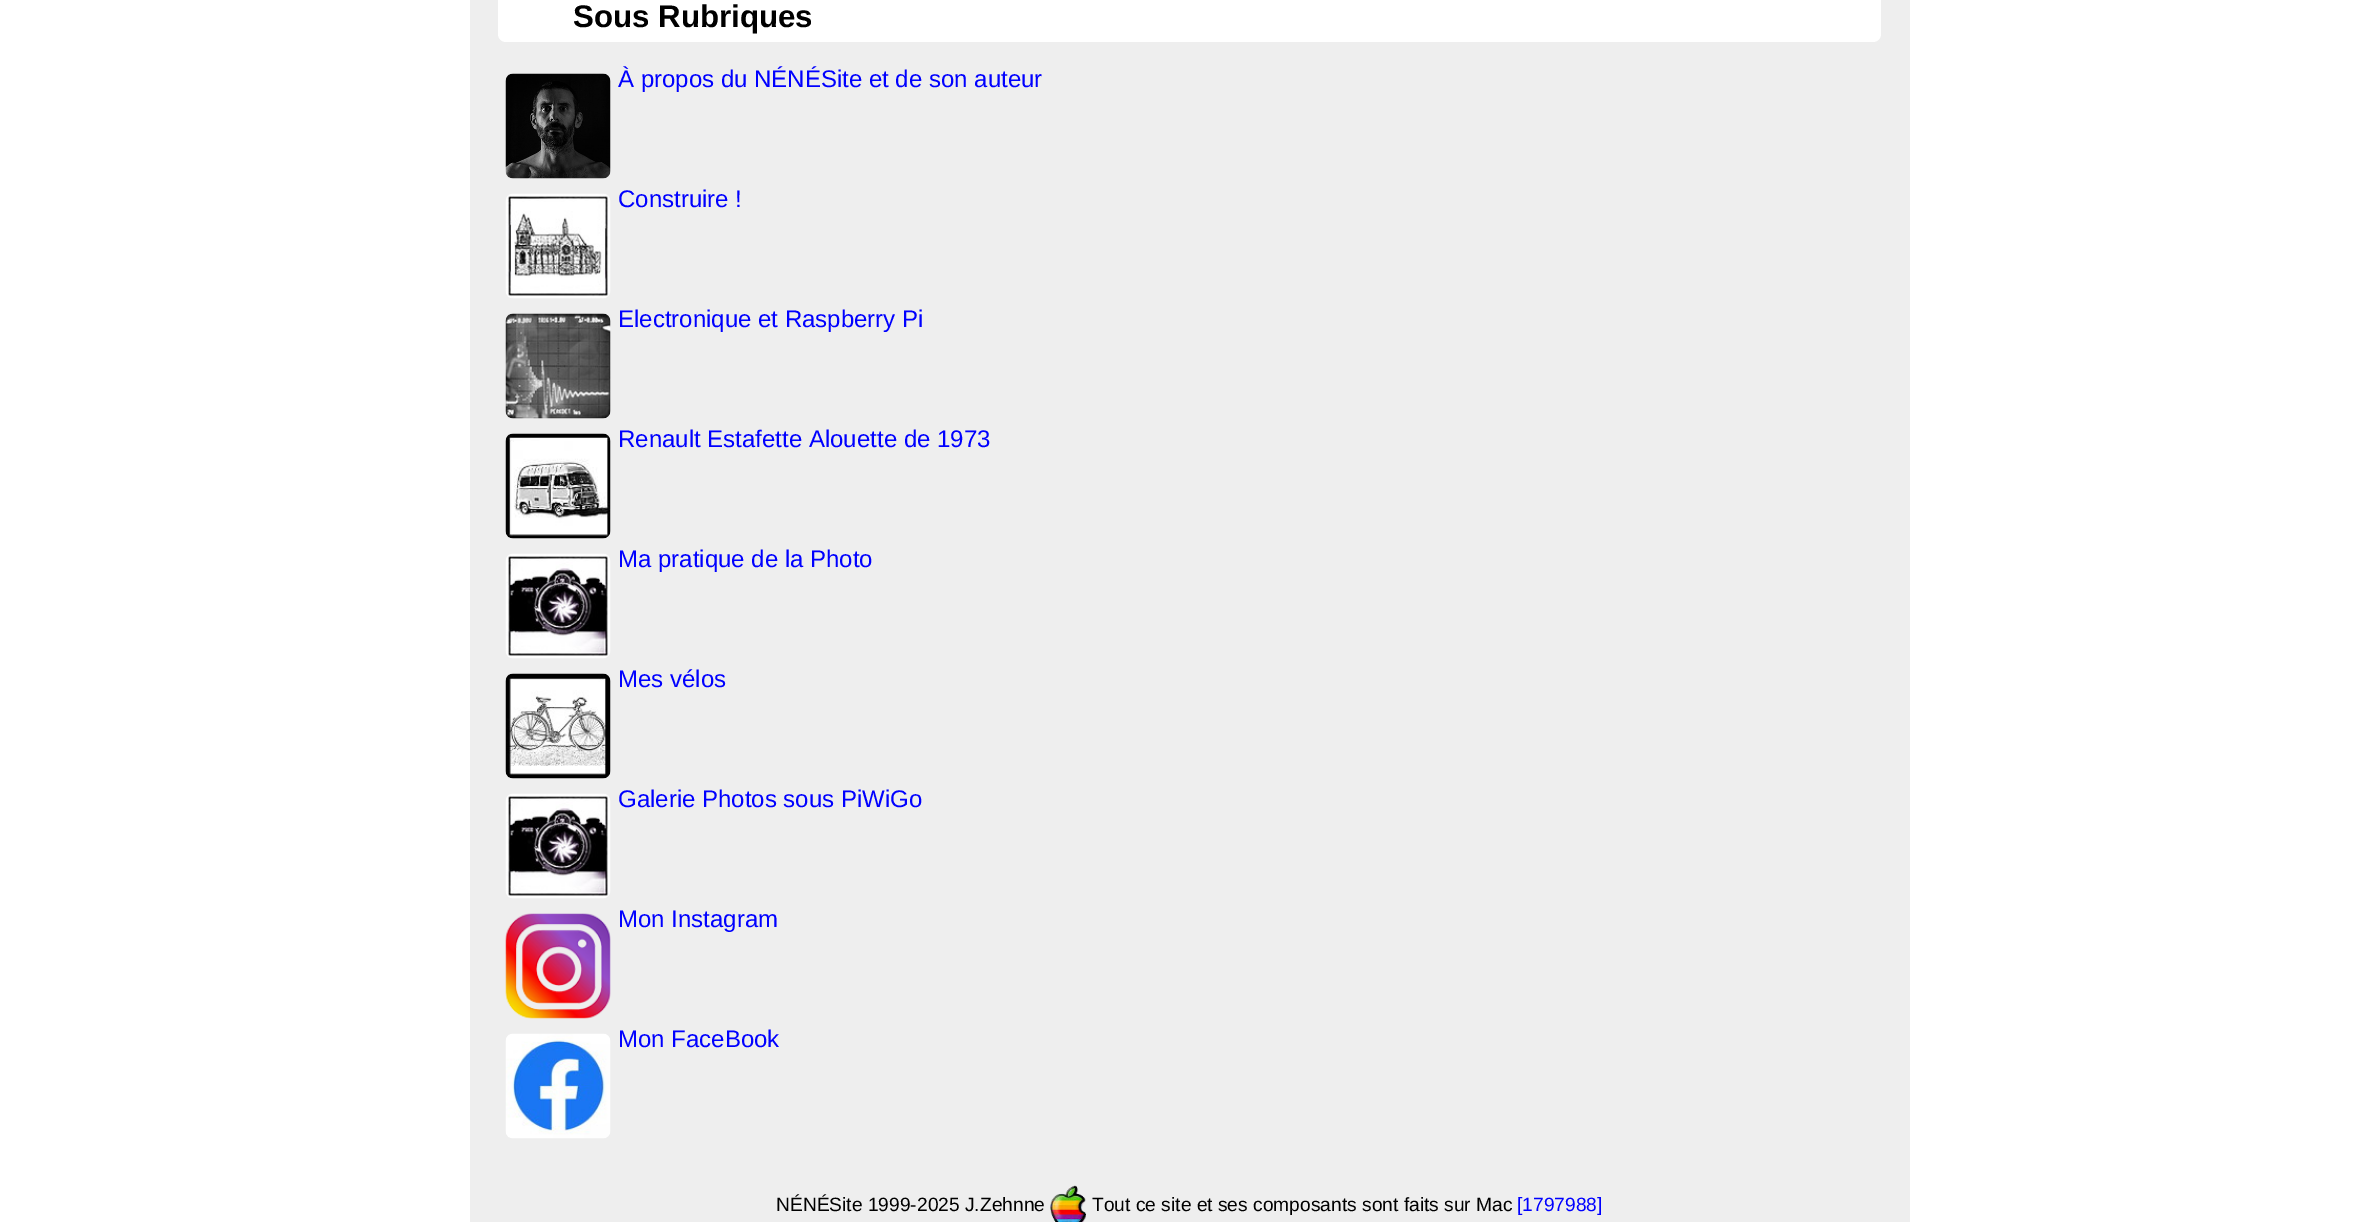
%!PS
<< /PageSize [2379 1222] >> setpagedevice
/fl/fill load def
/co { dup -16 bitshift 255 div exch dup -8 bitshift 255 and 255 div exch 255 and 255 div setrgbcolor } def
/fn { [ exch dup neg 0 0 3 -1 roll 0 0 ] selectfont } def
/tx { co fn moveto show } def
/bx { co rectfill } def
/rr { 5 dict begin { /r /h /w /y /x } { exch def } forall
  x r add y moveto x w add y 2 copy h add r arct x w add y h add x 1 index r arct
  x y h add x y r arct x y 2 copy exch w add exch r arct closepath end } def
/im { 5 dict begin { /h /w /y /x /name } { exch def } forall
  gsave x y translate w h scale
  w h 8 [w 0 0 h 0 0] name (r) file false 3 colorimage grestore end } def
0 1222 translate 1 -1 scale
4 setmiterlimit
0 0 2379 1222 16#FFFFFF bx
470 0 1440 1222 16#EEEEEE bx
16#FFFFFF co
498 -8 1383 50 8 rr fl
(media/1.raw) 505 73 106 106 im
(media/2.raw) 505 193 106 106 im
(media/3.raw) 505 313 106 106 im
(media/4.raw) 505 433 106 106 im
(media/5.raw) 505 553 106 106 im
(media/6.raw) 505 673 106 106 im
(media/5.raw) 505 793 106 106 im
(media/7.raw) 505 913 106 106 im
(media/8.raw) 505 1033 106 106 im
(media/9.raw) 1050 1185 36 37 im
(Sous Rubriques) 573 27 /LiberationSans-Bold 31.25 16#000000 tx
(À propos du NÉNÉSite et de son auteur) 618 87 /LiberationSans-Regular 24 16#0000FF tx
(Construire !) 618 207 /LiberationSans-Regular 24 16#0000FF tx
(Electronique et Raspberry Pi) 618 327 /LiberationSans-Regular 24 16#0000FF tx
(Renault Estafette Alouette de 1973) 618 447 /LiberationSans-Regular 24 16#0000FF tx
(Ma pratique de la Photo) 618 567 /LiberationSans-Regular 24 16#0000FF tx
(Mes vélos) 618 687 /LiberationSans-Regular 24 16#0000FF tx
(Galerie Photos sous PiWiGo) 618 807 /LiberationSans-Regular 24 16#0000FF tx
(Mon Instagram) 618 927 /LiberationSans-Regular 24 16#0000FF tx
(Mon FaceBook) 618 1047 /LiberationSans-Regular 24 16#0000FF tx
(NÉNÉSite 1999-2025 J.Zehnne) 776 1211 /LiberationSans-Regular 19.2 16#000000 tx
(Tout ce site et ses composants sont faits sur Mac) 1092 1211 /LiberationSans-Regular 19.2 16#000000 tx
([1797988]) 1517 1211 /LiberationSans-Regular 19.2 16#0000FF tx
showpage
